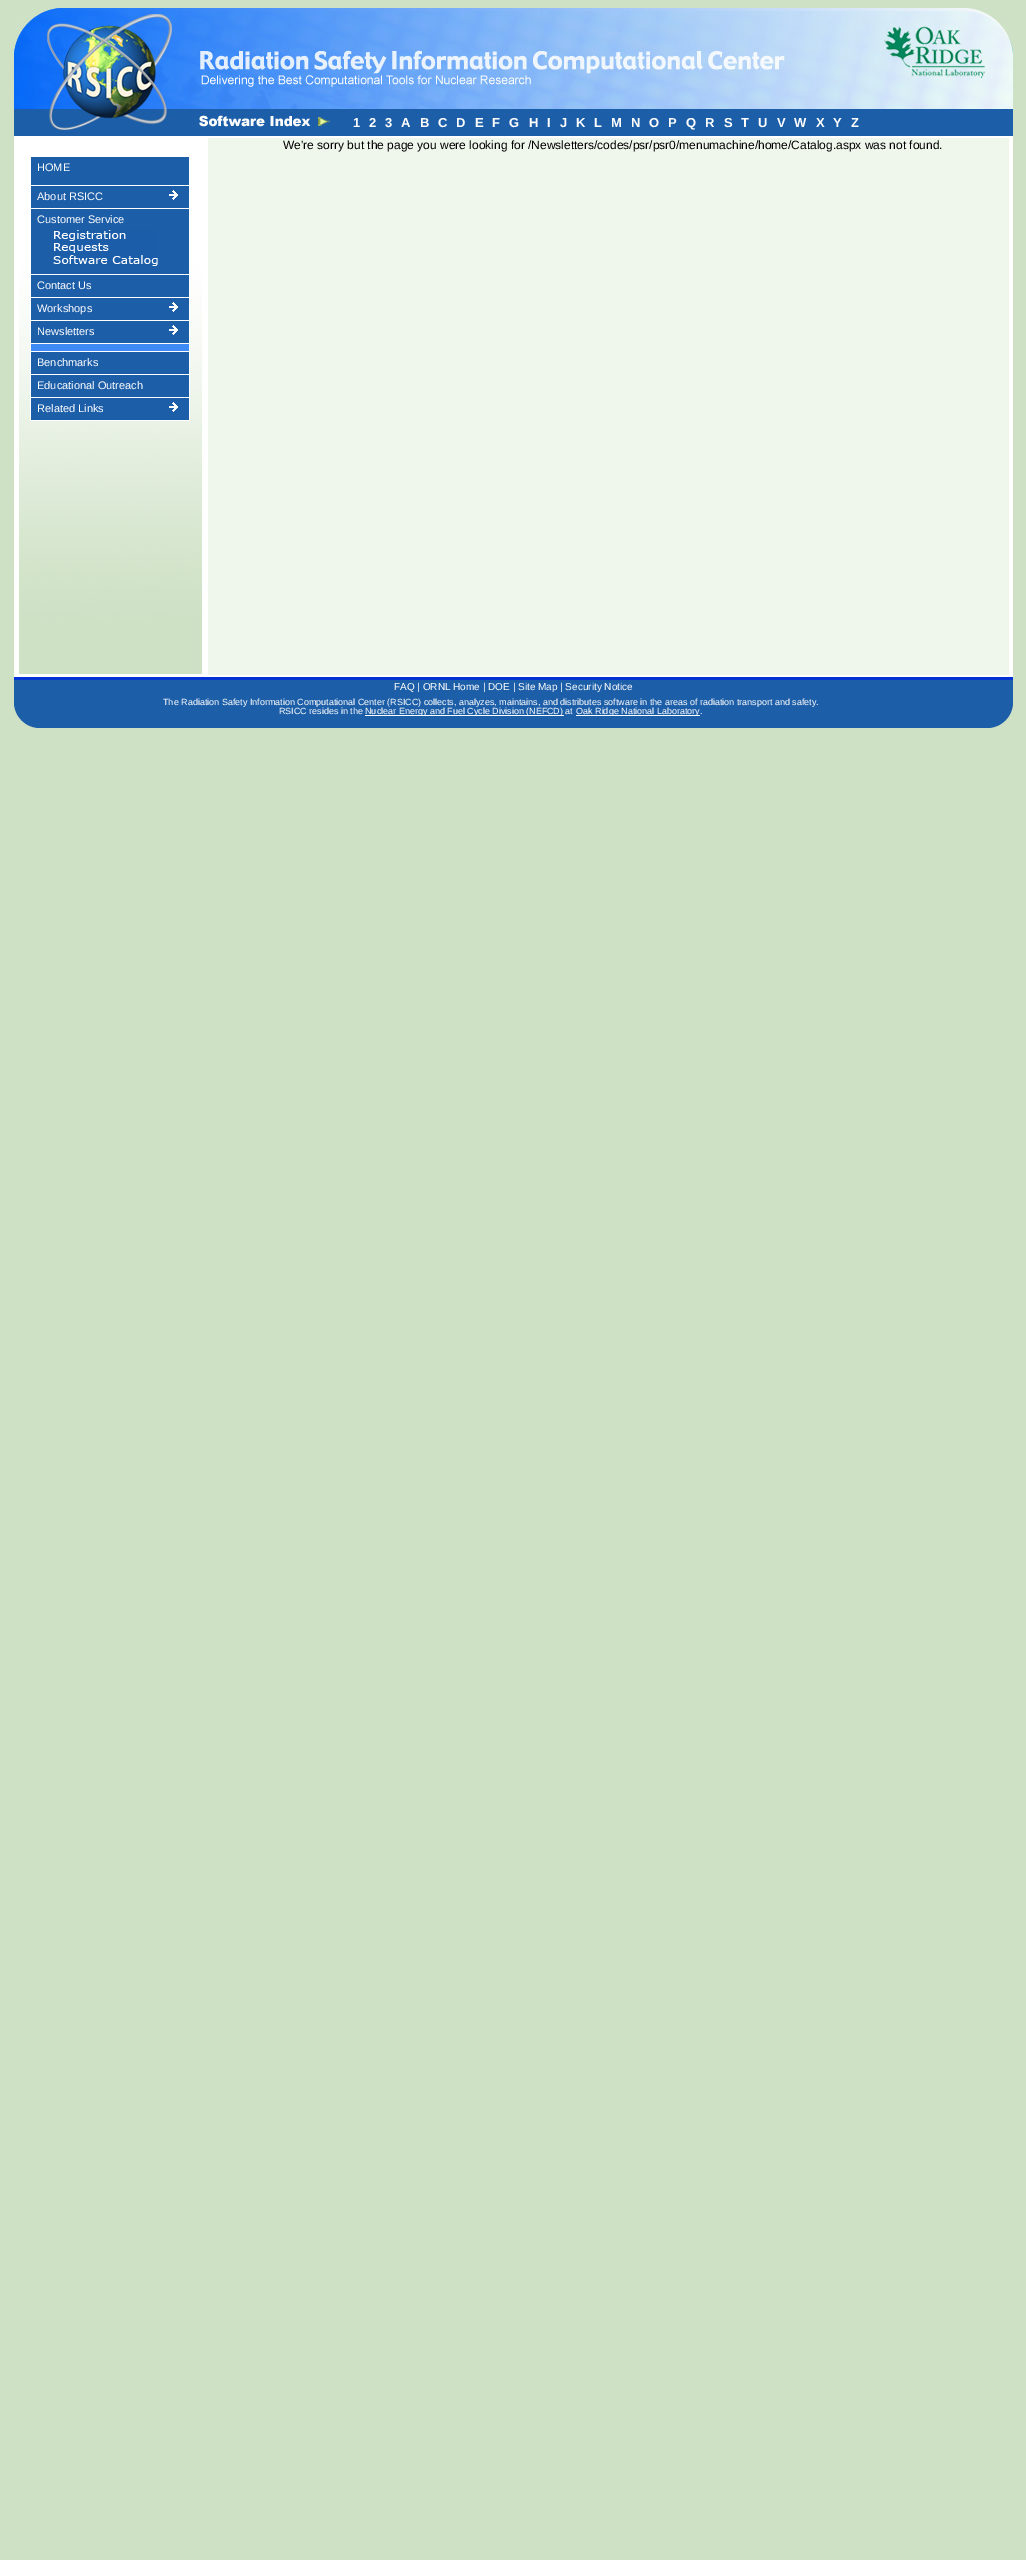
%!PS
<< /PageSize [1026 2560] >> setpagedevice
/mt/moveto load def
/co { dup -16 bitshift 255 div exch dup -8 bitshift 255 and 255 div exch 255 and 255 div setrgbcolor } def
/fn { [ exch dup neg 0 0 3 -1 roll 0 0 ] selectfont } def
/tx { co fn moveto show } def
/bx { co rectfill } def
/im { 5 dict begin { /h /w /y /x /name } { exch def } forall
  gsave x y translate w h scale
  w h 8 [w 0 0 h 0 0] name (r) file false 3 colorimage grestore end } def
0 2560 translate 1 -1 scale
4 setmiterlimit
0 0 1026 2560 16#CEE1C5 bx
(media/1.raw) 14 8 999 720 im
208 138 801 537 16#EFF7EC bx
30 288 160 133 16#FFFFFF bx
31 157 158 28 16#1D5EA8 bx
31 186 158 22 16#1C5EA8 bx
(media/2.raw) 169 190 9 10 im
31 209 158 65 16#1D5EA8 bx
(media/3.raw) 53 230 105 36 im
31 275 158 22 16#1C5EA8 bx
31 298 158 22 16#1C5EA8 bx
(media/2.raw) 169 302 9 10 im
31 321 158 22 16#1C5EA8 bx
(media/2.raw) 169 325 9 10 im
31 344 158 7 16#3E8BF7 bx
31 352 158 22 16#1C5EA8 bx
31 375 158 22 16#1C5EA8 bx
31 398 158 22 16#1C5EA8 bx
(media/2.raw) 169 402 9 10 im
365 715 199 1 16#FFFFFF bx
576 715 124 1 16#FFFFFF bx
/LiberationSans-Bold 13 fn
353 127 mt 3 0 (1) ashow
369 127 mt 3 0 (2) ashow
385 127 mt 3 0 (3) ashow
401 127 mt 3 0 (A) ashow
420 127 mt 3 0 (B) ashow
438 127 mt 3 0 (C) ashow
456 127 mt 3 0 (D) ashow
475 127 mt 3 0 (E) ashow
492 127 mt 3 0 (F) ashow
509 127 mt 3 0 (G) ashow
529 127 mt 3 0 (H) ashow
547 127 mt 3 0 (I) ashow
560 127 mt 3 0 (J) ashow
576 127 mt 3 0 (K) ashow
594 127 mt 3 0 (L) ashow
611 127 mt 3 0 (M) ashow
631 127 mt 3 0 (N) ashow
649 127 mt 3 0 (O) ashow
668 127 mt 3 0 (P) ashow
686 127 mt 3 0 (Q) ashow
705 127 mt 3 0 (R) ashow
724 127 mt 3 0 (S) ashow
741 127 mt 3 0 (T) ashow
758 127 mt 3 0 (U) ashow
777 127 mt 3 0 (V) ashow
794 127 mt 3 0 (W) ashow
816 127 mt 3 0 (X) ashow
833 127 mt 3 0 (Y) ashow
851 127 mt 3 0 (Z) ashow
(We're sorry but the page you were looking for /Newsletters/codes/psr/psr0/menumachine/home/Catalog.aspx was not found.) 283 149 /LiberationSans-Regular 12 16#000000 tx
(HOME) 37 171 /LiberationSans-Regular 11 16#FFFFFF tx
(About RSICC) 37 200 /LiberationSans-Regular 11 16#FFFFFF tx
(Customer Service) 37 223 /LiberationSans-Regular 11 16#FFFFFF tx
(Contact Us) 37 289 /LiberationSans-Regular 11 16#FFFFFF tx
(Workshops) 37 312 /LiberationSans-Regular 11 16#FFFFFF tx
(Newsletters) 37 335 /LiberationSans-Regular 11 16#FFFFFF tx
(Benchmarks) 37 366 /LiberationSans-Regular 11 16#FFFFFF tx
(Educational Outreach) 37 389 /LiberationSans-Regular 11 16#FFFFFF tx
(Related Links) 37 412 /LiberationSans-Regular 11 16#FFFFFF tx
(FAQ | ORNL Home | DOE | Site Map | Security Notice) 394 690 /LiberationSans-Regular 10 16#FFFFFF tx
(The Radiation Safety Information Computational Center \(RSICC\) collects, analyzes, maintains, and distributes software in the areas of radiation transport and safety.) 163 705 /LiberationSans-Regular 9 16#FFFFFF tx
(RSICC resides in the) 279 714 /LiberationSans-Regular 9 16#FFFFFF tx
(Nuclear Energy and Fuel Cycle Division \(NEFCD\) at) 365 714 /LiberationSans-Regular 9 16#FFFFFF tx
(Oak Ridge National Laboratory.) 576 714 /LiberationSans-Regular 9 16#FFFFFF tx
showpage
